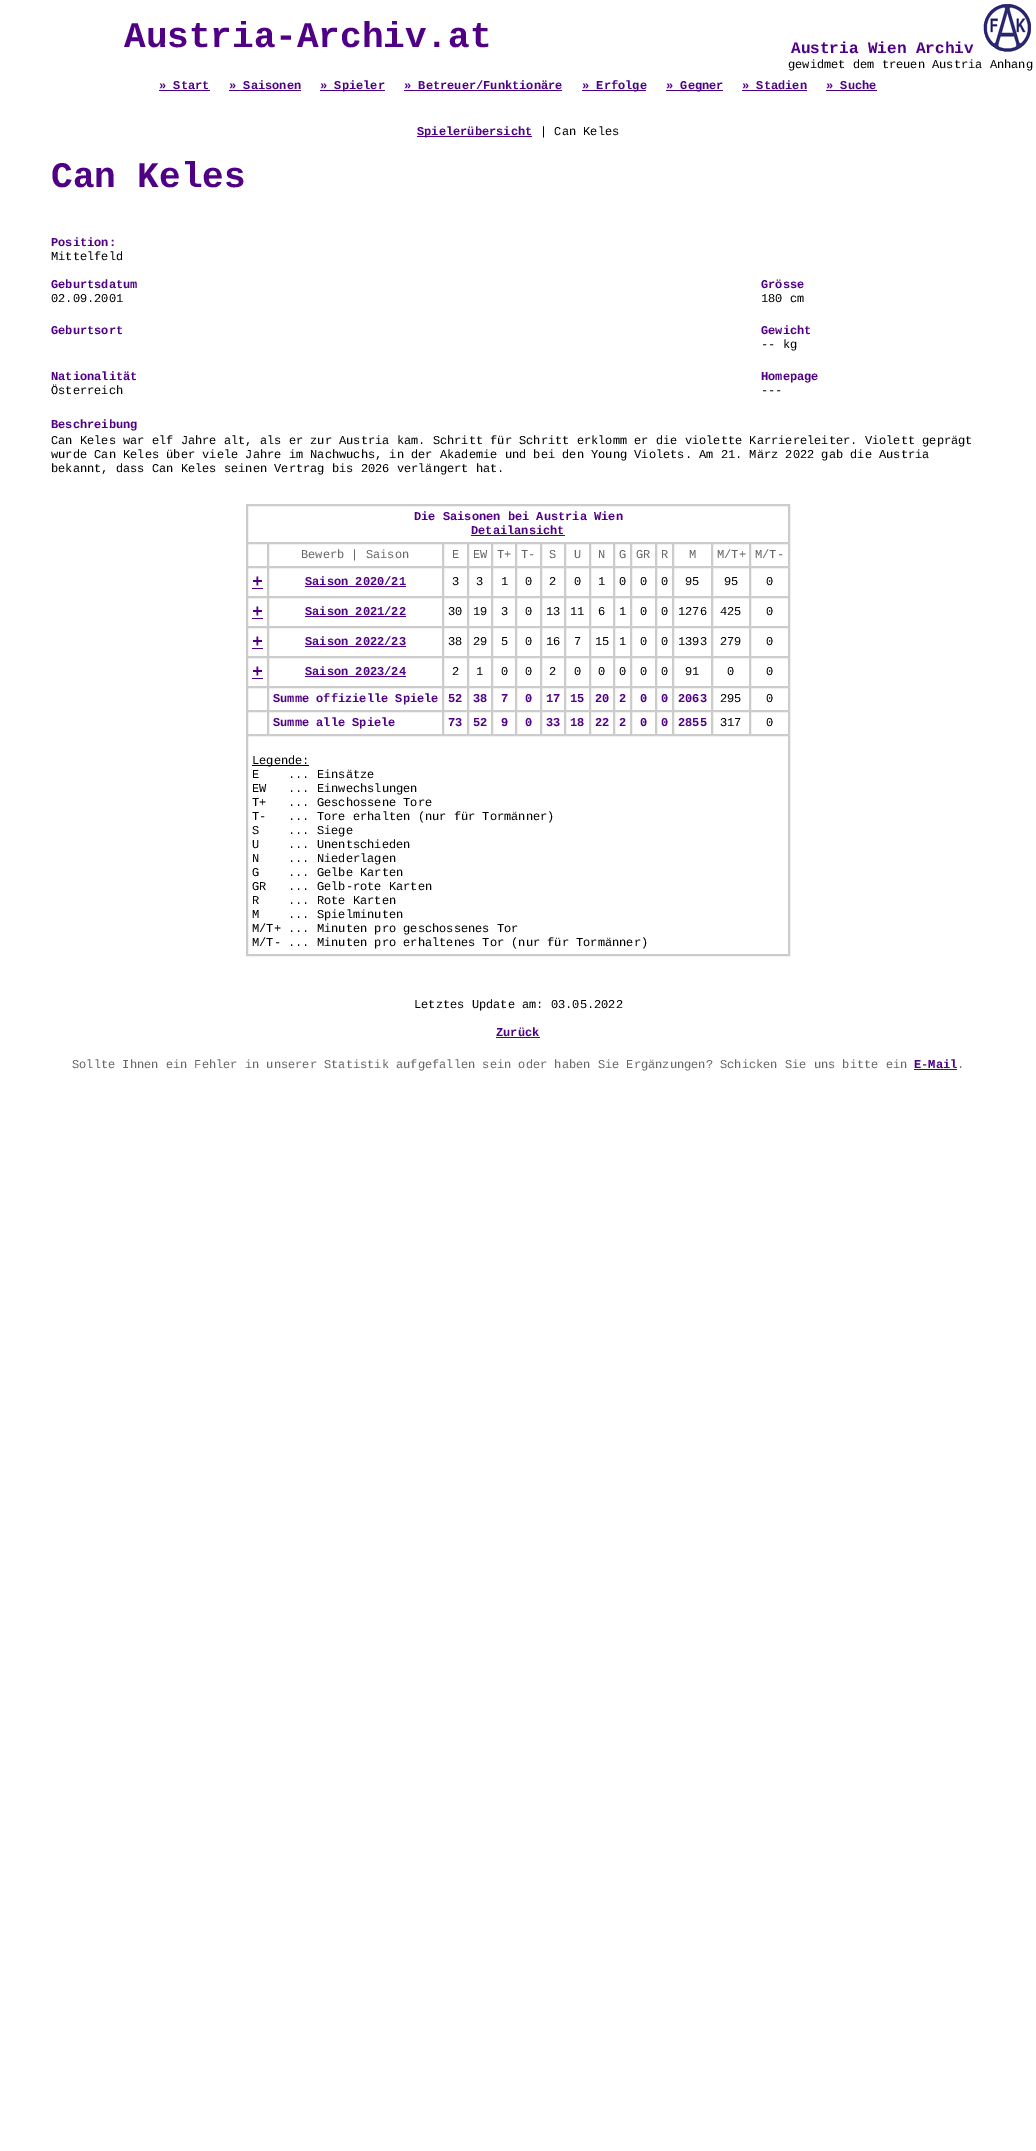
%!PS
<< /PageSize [1036 2151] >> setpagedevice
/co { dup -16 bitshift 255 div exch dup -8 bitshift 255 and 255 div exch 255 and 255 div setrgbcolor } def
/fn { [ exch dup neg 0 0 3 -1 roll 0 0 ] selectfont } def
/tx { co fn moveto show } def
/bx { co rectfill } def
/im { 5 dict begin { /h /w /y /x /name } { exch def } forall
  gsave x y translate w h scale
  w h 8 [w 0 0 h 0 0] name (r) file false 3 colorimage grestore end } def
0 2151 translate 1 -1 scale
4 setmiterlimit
0 0 1036 2151 16#FFFFFF bx
(media/1.raw) 983 4 48 48 im
159 90 51 1 16#4F0084 bx
229 90 72 1 16#4F0084 bx
320 90 65 1 16#4F0084 bx
404 90 158 1 16#4F0084 bx
582 90 64 1 16#4F0084 bx
666 90 57 1 16#4F0084 bx
742 90 65 1 16#4F0084 bx
826 90 51 1 16#4F0084 bx
417 136 115 1 16#4F0084 bx
16#CCCCCC co
246.5 504.5 543 451 rectstroke
247.5 505.5 541 37 rectstroke
471 535 94 1 16#4F0084 bx
16#CCCCCC co
247.5 543.5 20 23 rectstroke
268.5 543.5 174 23 rectstroke
443.5 543.5 24 23 rectstroke
468.5 543.5 23 23 rectstroke
492.5 543.5 23 23 rectstroke
516.5 543.5 24 23 rectstroke
541.5 543.5 23 23 rectstroke
565.5 543.5 24 23 rectstroke
590.5 543.5 23 23 rectstroke
614.5 543.5 16 23 rectstroke
631.5 543.5 24 23 rectstroke
656.5 543.5 16 23 rectstroke
673.5 543.5 38 23 rectstroke
712.5 543.5 37 23 rectstroke
750.5 543.5 38 23 rectstroke
247.5 567.5 20 29 rectstroke
252 588 11 1 16#4F0084 bx
16#CCCCCC co
268.5 567.5 174 29 rectstroke
305 586 101 1 16#4F0084 bx
16#CCCCCC co
443.5 567.5 24 29 rectstroke
468.5 567.5 23 29 rectstroke
492.5 567.5 23 29 rectstroke
516.5 567.5 24 29 rectstroke
541.5 567.5 23 29 rectstroke
565.5 567.5 24 29 rectstroke
590.5 567.5 23 29 rectstroke
614.5 567.5 16 29 rectstroke
631.5 567.5 24 29 rectstroke
656.5 567.5 16 29 rectstroke
673.5 567.5 38 29 rectstroke
712.5 567.5 37 29 rectstroke
750.5 567.5 38 29 rectstroke
247.5 597.5 20 29 rectstroke
252 618 11 1 16#4F0084 bx
16#CCCCCC co
268.5 597.5 174 29 rectstroke
305 616 101 1 16#4F0084 bx
16#CCCCCC co
443.5 597.5 24 29 rectstroke
468.5 597.5 23 29 rectstroke
492.5 597.5 23 29 rectstroke
516.5 597.5 24 29 rectstroke
541.5 597.5 23 29 rectstroke
565.5 597.5 24 29 rectstroke
590.5 597.5 23 29 rectstroke
614.5 597.5 16 29 rectstroke
631.5 597.5 24 29 rectstroke
656.5 597.5 16 29 rectstroke
673.5 597.5 38 29 rectstroke
712.5 597.5 37 29 rectstroke
750.5 597.5 38 29 rectstroke
247.5 627.5 20 29 rectstroke
252 648 11 1 16#4F0084 bx
16#CCCCCC co
268.5 627.5 174 29 rectstroke
305 646 101 1 16#4F0084 bx
16#CCCCCC co
443.5 627.5 24 29 rectstroke
468.5 627.5 23 29 rectstroke
492.5 627.5 23 29 rectstroke
516.5 627.5 24 29 rectstroke
541.5 627.5 23 29 rectstroke
565.5 627.5 24 29 rectstroke
590.5 627.5 23 29 rectstroke
614.5 627.5 16 29 rectstroke
631.5 627.5 24 29 rectstroke
656.5 627.5 16 29 rectstroke
673.5 627.5 38 29 rectstroke
712.5 627.5 37 29 rectstroke
750.5 627.5 38 29 rectstroke
247.5 657.5 20 29 rectstroke
252 678 11 1 16#4F0084 bx
16#CCCCCC co
268.5 657.5 174 29 rectstroke
305 676 101 1 16#4F0084 bx
16#CCCCCC co
443.5 657.5 24 29 rectstroke
468.5 657.5 23 29 rectstroke
492.5 657.5 23 29 rectstroke
516.5 657.5 24 29 rectstroke
541.5 657.5 23 29 rectstroke
565.5 657.5 24 29 rectstroke
590.5 657.5 23 29 rectstroke
614.5 657.5 16 29 rectstroke
631.5 657.5 24 29 rectstroke
656.5 657.5 16 29 rectstroke
673.5 657.5 38 29 rectstroke
712.5 657.5 37 29 rectstroke
750.5 657.5 38 29 rectstroke
247.5 687.5 20 23 rectstroke
268.5 687.5 174 23 rectstroke
443.5 687.5 24 23 rectstroke
468.5 687.5 23 23 rectstroke
492.5 687.5 23 23 rectstroke
516.5 687.5 24 23 rectstroke
541.5 687.5 23 23 rectstroke
565.5 687.5 24 23 rectstroke
590.5 687.5 23 23 rectstroke
614.5 687.5 16 23 rectstroke
631.5 687.5 24 23 rectstroke
656.5 687.5 16 23 rectstroke
673.5 687.5 38 23 rectstroke
712.5 687.5 37 23 rectstroke
750.5 687.5 38 23 rectstroke
247.5 711.5 20 23 rectstroke
268.5 711.5 174 23 rectstroke
443.5 711.5 24 23 rectstroke
468.5 711.5 23 23 rectstroke
492.5 711.5 23 23 rectstroke
516.5 711.5 24 23 rectstroke
541.5 711.5 23 23 rectstroke
565.5 711.5 24 23 rectstroke
590.5 711.5 23 23 rectstroke
614.5 711.5 16 23 rectstroke
631.5 711.5 24 23 rectstroke
656.5 711.5 16 23 rectstroke
673.5 711.5 38 23 rectstroke
712.5 711.5 37 23 rectstroke
750.5 711.5 38 23 rectstroke
247.5 735.5 541 219 rectstroke
252 765 57 1 16#000000 bx
496 1037 44 1 16#4F0084 bx
914 1069 43 1 16#4F0084 bx
(Austria-Archiv.at) 124 47 /LiberationMono-Bold 36 16#4F0084 tx
(Austria Wien Archiv) 791 53 /LiberationMono-Bold 16 16#4F0084 tx
(gewidmet dem treuen Austria Anhang) 788 68 /LiberationMono-Regular 12 16#000000 tx
(» Start) 159 89 /LiberationMono-Bold 12 16#4F0084 tx
(» Saisonen) 229 89 /LiberationMono-Bold 12 16#4F0084 tx
(» Spieler) 320 89 /LiberationMono-Bold 12 16#4F0084 tx
(» Betreuer/Funktionäre) 404 89 /LiberationMono-Bold 12 16#4F0084 tx
(» Erfolge) 582 89 /LiberationMono-Bold 12 16#4F0084 tx
(» Gegner) 666 89 /LiberationMono-Bold 12 16#4F0084 tx
(» Stadien) 742 89 /LiberationMono-Bold 12 16#4F0084 tx
(» Suche) 826 89 /LiberationMono-Bold 12 16#4F0084 tx
(Spielerübersicht) 417 135 /LiberationMono-Bold 12 16#4F0084 tx
(| Can Keles) 540 135 /LiberationMono-Regular 12 16#000000 tx
(Can Keles) 51 187 /LiberationMono-Bold 36 16#4F0084 tx
(Position:) 51 246 /LiberationMono-Bold 12 16#4F0084 tx
(Mittelfeld) 51 260 /LiberationMono-Regular 12 16#000000 tx
(Geburtsdatum) 51 288 /LiberationMono-Bold 12 16#4F0084 tx
(Grösse) 761 288 /LiberationMono-Bold 12 16#4F0084 tx
(02.09.2001) 51 302 /LiberationMono-Regular 12 16#000000 tx
(180 cm) 761 302 /LiberationMono-Regular 12 16#000000 tx
(Geburtsort) 51 334 /LiberationMono-Bold 12 16#4F0084 tx
(Gewicht) 761 334 /LiberationMono-Bold 12 16#4F0084 tx
(-- kg) 761 348 /LiberationMono-Regular 12 16#000000 tx
(Nationalität) 51 380 /LiberationMono-Bold 12 16#4F0084 tx
(Homepage) 761 380 /LiberationMono-Bold 12 16#4F0084 tx
(Österreich) 51 394 /LiberationMono-Regular 12 16#000000 tx
(---) 761 394 /LiberationMono-Regular 12 16#000000 tx
(Beschreibung) 51 428 /LiberationMono-Bold 12 16#4F0084 tx
(Can Keles war elf Jahre alt, als er zur Austria kam. Schritt für Schritt erklomm er die violette Karriereleiter. Violett geprägt) 51 444 /LiberationMono-Regular 12 16#000000 tx
(wurde Can Keles über viele Jahre im Nachwuchs, in der Akademie und bei den Young Violets. Am 21. März 2022 gab die Austria) 51 458 /LiberationMono-Regular 12 16#000000 tx
(bekannt, dass Can Keles seinen Vertrag bis 2026 verlängert hat.) 51 472 /LiberationMono-Regular 12 16#000000 tx
(Die Saisonen bei Austria Wien) 414 520 /LiberationMono-Bold 12 16#4F0084 tx
(Detailansicht) 471 534 /LiberationMono-Bold 12 16#4F0084 tx
(Bewerb | Saison) 301 558 /LiberationMono-Regular 12 16#666666 tx
(E) 452 558 /LiberationMono-Regular 12 16#666666 tx
(EW) 473 558 /LiberationMono-Regular 12 16#666666 tx
(T+) 497 558 /LiberationMono-Regular 12 16#666666 tx
(T-) 521 558 /LiberationMono-Regular 12 16#666666 tx
(S) 549 558 /LiberationMono-Regular 12 16#666666 tx
(U) 574 558 /LiberationMono-Regular 12 16#666666 tx
(N) 598 558 /LiberationMono-Regular 12 16#666666 tx
(G) 619 558 /LiberationMono-Regular 12 16#666666 tx
(GR) 636 558 /LiberationMono-Regular 12 16#666666 tx
(R) 661 558 /LiberationMono-Regular 12 16#666666 tx
(M) 689 558 /LiberationMono-Regular 12 16#666666 tx
(M/T+) 717 558 /LiberationMono-Regular 12 16#666666 tx
(M/T-) 755 558 /LiberationMono-Regular 12 16#666666 tx
(+) 252 587 /LiberationMono-Bold 18 16#4F0084 tx
(Saison 2020/21) 305 585 /LiberationMono-Bold 12 16#4F0084 tx
(3) 452 585 /LiberationMono-Regular 12 16#000000 tx
(3) 476 585 /LiberationMono-Regular 12 16#000000 tx
(1) 501 585 /LiberationMono-Regular 12 16#000000 tx
(0) 525 585 /LiberationMono-Regular 12 16#000000 tx
(2) 549 585 /LiberationMono-Regular 12 16#000000 tx
(0) 574 585 /LiberationMono-Regular 12 16#000000 tx
(1) 598 585 /LiberationMono-Regular 12 16#000000 tx
(0) 619 585 /LiberationMono-Regular 12 16#000000 tx
(0) 640 585 /LiberationMono-Regular 12 16#000000 tx
(0) 661 585 /LiberationMono-Regular 12 16#000000 tx
(95) 685 585 /LiberationMono-Regular 12 16#000000 tx
(95) 724 585 /LiberationMono-Regular 12 16#000000 tx
(0) 766 585 /LiberationMono-Regular 12 16#000000 tx
(+) 252 617 /LiberationMono-Bold 18 16#4F0084 tx
(Saison 2021/22) 305 615 /LiberationMono-Bold 12 16#4F0084 tx
(30) 448 615 /LiberationMono-Regular 12 16#000000 tx
(19) 473 615 /LiberationMono-Regular 12 16#000000 tx
(3) 501 615 /LiberationMono-Regular 12 16#000000 tx
(0) 525 615 /LiberationMono-Regular 12 16#000000 tx
(13) 546 615 /LiberationMono-Regular 12 16#000000 tx
(11) 570 615 /LiberationMono-Regular 12 16#000000 tx
(6) 598 615 /LiberationMono-Regular 12 16#000000 tx
(1) 619 615 /LiberationMono-Regular 12 16#000000 tx
(0) 640 615 /LiberationMono-Regular 12 16#000000 tx
(0) 661 615 /LiberationMono-Regular 12 16#000000 tx
(1276) 678 615 /LiberationMono-Regular 12 16#000000 tx
(425) 720 615 /LiberationMono-Regular 12 16#000000 tx
(0) 766 615 /LiberationMono-Regular 12 16#000000 tx
(+) 252 647 /LiberationMono-Bold 18 16#4F0084 tx
(Saison 2022/23) 305 645 /LiberationMono-Bold 12 16#4F0084 tx
(38) 448 645 /LiberationMono-Regular 12 16#000000 tx
(29) 473 645 /LiberationMono-Regular 12 16#000000 tx
(5) 501 645 /LiberationMono-Regular 12 16#000000 tx
(0) 525 645 /LiberationMono-Regular 12 16#000000 tx
(16) 546 645 /LiberationMono-Regular 12 16#000000 tx
(7) 574 645 /LiberationMono-Regular 12 16#000000 tx
(15) 595 645 /LiberationMono-Regular 12 16#000000 tx
(1) 619 645 /LiberationMono-Regular 12 16#000000 tx
(0) 640 645 /LiberationMono-Regular 12 16#000000 tx
(0) 661 645 /LiberationMono-Regular 12 16#000000 tx
(1393) 678 645 /LiberationMono-Regular 12 16#000000 tx
(279) 720 645 /LiberationMono-Regular 12 16#000000 tx
(0) 766 645 /LiberationMono-Regular 12 16#000000 tx
(+) 252 677 /LiberationMono-Bold 18 16#4F0084 tx
(Saison 2023/24) 305 675 /LiberationMono-Bold 12 16#4F0084 tx
(2) 452 675 /LiberationMono-Regular 12 16#000000 tx
(1) 476 675 /LiberationMono-Regular 12 16#000000 tx
(0) 501 675 /LiberationMono-Regular 12 16#000000 tx
(0) 525 675 /LiberationMono-Regular 12 16#000000 tx
(2) 549 675 /LiberationMono-Regular 12 16#000000 tx
(0) 574 675 /LiberationMono-Regular 12 16#000000 tx
(0) 598 675 /LiberationMono-Regular 12 16#000000 tx
(0) 619 675 /LiberationMono-Regular 12 16#000000 tx
(0) 640 675 /LiberationMono-Regular 12 16#000000 tx
(0) 661 675 /LiberationMono-Regular 12 16#000000 tx
(91) 685 675 /LiberationMono-Regular 12 16#000000 tx
(0) 727 675 /LiberationMono-Regular 12 16#000000 tx
(0) 766 675 /LiberationMono-Regular 12 16#000000 tx
(Summe offizielle Spiele) 273 702 /LiberationMono-Bold 12 16#4F0084 tx
(52) 448 702 /LiberationMono-Bold 12 16#4F0084 tx
(38) 473 702 /LiberationMono-Bold 12 16#4F0084 tx
(7) 501 702 /LiberationMono-Bold 12 16#4F0084 tx
(0) 525 702 /LiberationMono-Bold 12 16#4F0084 tx
(17) 546 702 /LiberationMono-Bold 12 16#4F0084 tx
(15) 570 702 /LiberationMono-Bold 12 16#4F0084 tx
(20) 595 702 /LiberationMono-Bold 12 16#4F0084 tx
(2) 619 702 /LiberationMono-Bold 12 16#4F0084 tx
(0) 640 702 /LiberationMono-Bold 12 16#4F0084 tx
(0) 661 702 /LiberationMono-Bold 12 16#4F0084 tx
(2063) 678 702 /LiberationMono-Bold 12 16#4F0084 tx
(295) 720 702 /LiberationMono-Regular 12 16#000000 tx
(0) 766 702 /LiberationMono-Regular 12 16#000000 tx
(Summe alle Spiele) 273 726 /LiberationMono-Bold 12 16#4F0084 tx
(73) 448 726 /LiberationMono-Bold 12 16#4F0084 tx
(52) 473 726 /LiberationMono-Bold 12 16#4F0084 tx
(9) 501 726 /LiberationMono-Bold 12 16#4F0084 tx
(0) 525 726 /LiberationMono-Bold 12 16#4F0084 tx
(33) 546 726 /LiberationMono-Bold 12 16#4F0084 tx
(18) 570 726 /LiberationMono-Bold 12 16#4F0084 tx
(22) 595 726 /LiberationMono-Bold 12 16#4F0084 tx
(2) 619 726 /LiberationMono-Bold 12 16#4F0084 tx
(0) 640 726 /LiberationMono-Bold 12 16#4F0084 tx
(0) 661 726 /LiberationMono-Bold 12 16#4F0084 tx
(2855) 678 726 /LiberationMono-Bold 12 16#4F0084 tx
(317) 720 726 /LiberationMono-Regular 12 16#000000 tx
(0) 766 726 /LiberationMono-Regular 12 16#000000 tx
(Legende:) 252 764 /LiberationMono-Regular 12 16#000000 tx
(E    ... Einsätze) 252 778 /LiberationMono-Regular 12 16#000000 tx
(EW   ... Einwechslungen) 252 792 /LiberationMono-Regular 12 16#000000 tx
(T+   ... Geschossene Tore) 252 806 /LiberationMono-Regular 12 16#000000 tx
(T-   ... Tore erhalten \(nur für Tormänner\)) 252 820 /LiberationMono-Regular 12 16#000000 tx
(S    ... Siege) 252 834 /LiberationMono-Regular 12 16#000000 tx
(U    ... Unentschieden) 252 848 /LiberationMono-Regular 12 16#000000 tx
(N    ... Niederlagen) 252 862 /LiberationMono-Regular 12 16#000000 tx
(G    ... Gelbe Karten) 252 876 /LiberationMono-Regular 12 16#000000 tx
(GR   ... Gelb-rote Karten) 252 890 /LiberationMono-Regular 12 16#000000 tx
(R    ... Rote Karten) 252 904 /LiberationMono-Regular 12 16#000000 tx
(M    ... Spielminuten) 252 918 /LiberationMono-Regular 12 16#000000 tx
(M/T+ ... Minuten pro geschossenes Tor) 252 932 /LiberationMono-Regular 12 16#000000 tx
(M/T- ... Minuten pro erhaltenes Tor \(nur für Tormänner\)) 252 946 /LiberationMono-Regular 12 16#000000 tx
(Letztes Update am: 03.05.2022) 414 1008 /LiberationMono-Regular 12 16#000000 tx
(Zurück) 496 1036 /LiberationMono-Bold 12 16#4F0084 tx
(Sollte Ihnen ein Fehler in unserer Statistik aufgefallen sein oder haben Sie Ergänzungen? Schicken Sie uns bitte ein) 72 1068 /LiberationMono-Regular 12 16#666666 tx
(E-Mail) 914 1068 /LiberationMono-Bold 12 16#4F0084 tx
(.) 957 1068 /LiberationMono-Regular 12 16#666666 tx
showpage
